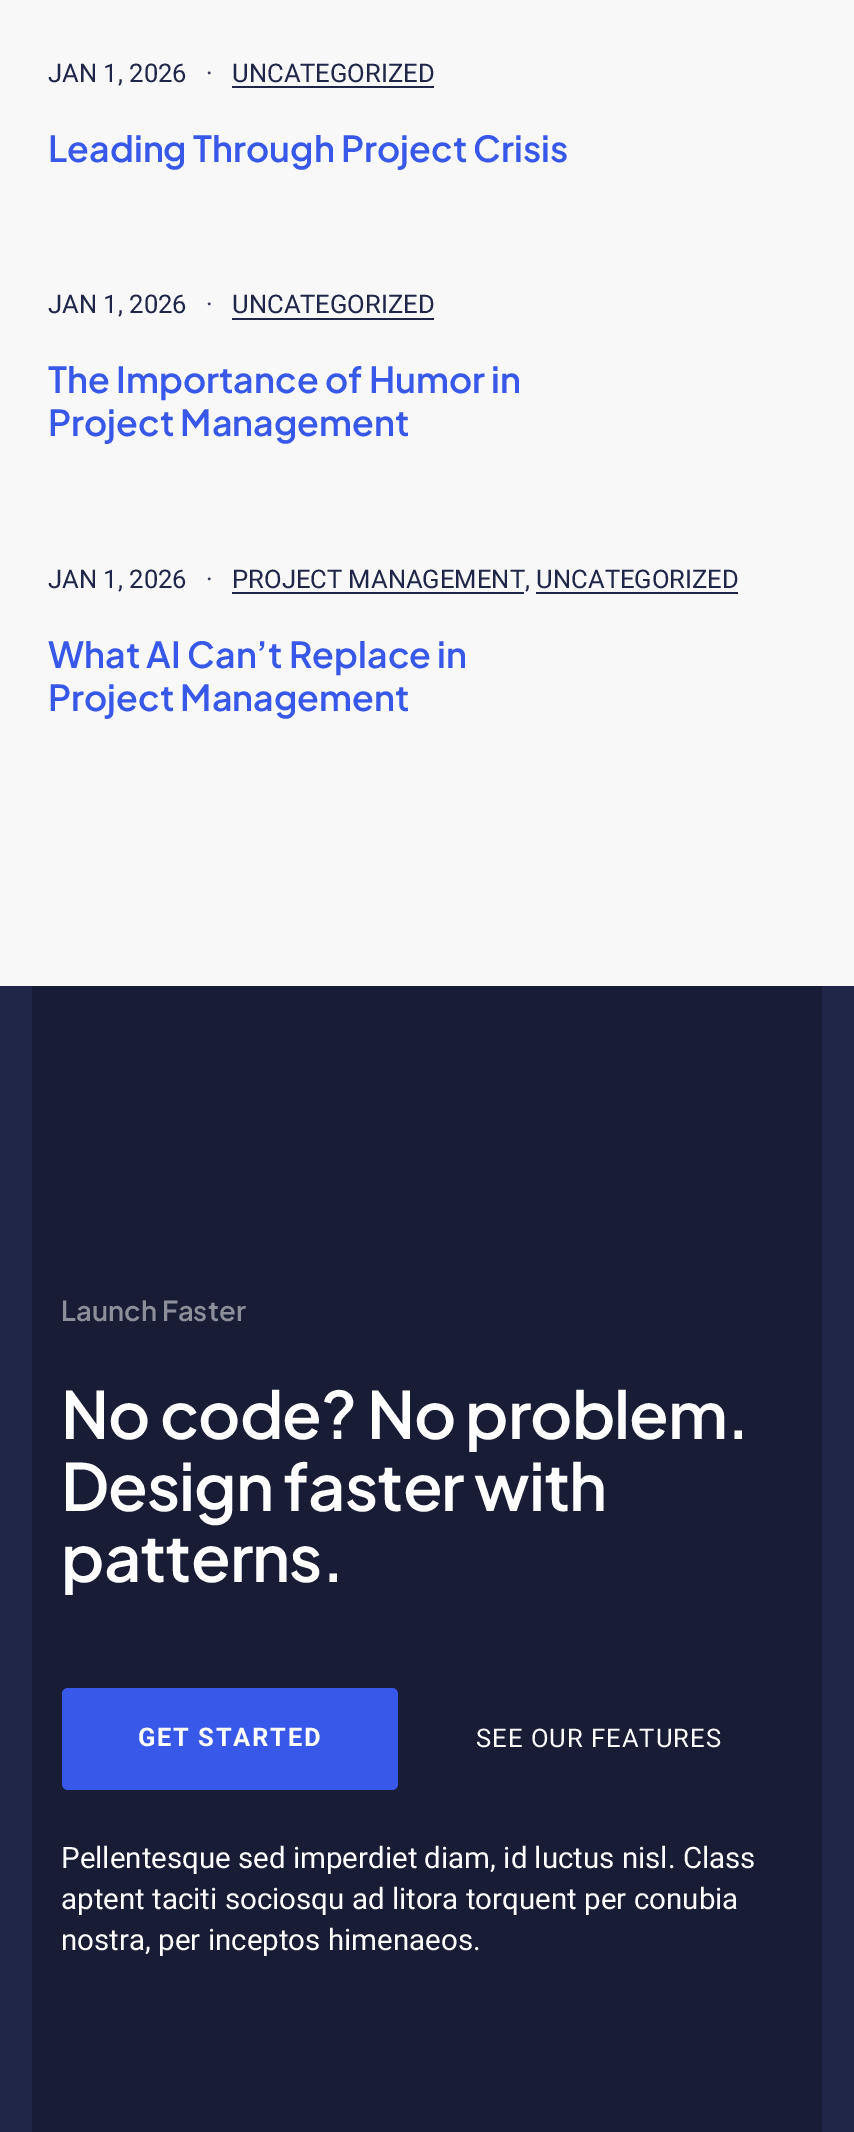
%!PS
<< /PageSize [854 2132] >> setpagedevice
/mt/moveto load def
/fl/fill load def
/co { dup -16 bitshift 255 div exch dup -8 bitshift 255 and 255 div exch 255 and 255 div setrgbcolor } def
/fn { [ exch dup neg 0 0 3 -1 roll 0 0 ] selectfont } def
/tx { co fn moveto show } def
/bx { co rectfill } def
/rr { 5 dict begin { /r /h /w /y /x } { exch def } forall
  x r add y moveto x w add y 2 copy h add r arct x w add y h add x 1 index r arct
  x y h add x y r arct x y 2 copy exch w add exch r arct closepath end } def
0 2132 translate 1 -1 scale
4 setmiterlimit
0 0 854 2132 16#F8F8F9 bx
232 86 202 2 16#1F2647 bx
232 318 202 2 16#1F2647 bx
232 592 292 2 16#1F2647 bx
536 592 202 2 16#1F2647 bx
822 986 32 1146 16#1F2647 bx
0 986 32 1146 16#1F2647 bx
32 986 790 1146 16#181C35 bx
16#3858E9 co
62 1688 336 102 6 rr fl
(JAN 1, 2026) 48 82 /Roboto-Regular 25.6 16#1F2647 tx
(·) 206 82 /Roboto-Regular 25.6 16#353B59 tx
(UNCATEGORIZED) 232 82 /Roboto-Regular 25.6 16#1F2647 tx
(Leading Through Project Crisis) 48 162 /PlusJakartaSans-SemiBold 35.75 16#3858E9 tx
(JAN 1, 2026) 48 313 /Roboto-Regular 25.6 16#1F2647 tx
(·) 206 313 /Roboto-Regular 25.6 16#353B59 tx
(UNCATEGORIZED) 232 313 /Roboto-Regular 25.6 16#1F2647 tx
(The Importance of Humor in) 48 393 /PlusJakartaSans-SemiBold 35.75 16#3858E9 tx
(Project Management) 48 436 /PlusJakartaSans-SemiBold 35.75 16#3858E9 tx
(JAN 1, 2026) 48 588 /Roboto-Regular 25.6 16#1F2647 tx
(·) 206 588 /Roboto-Regular 25.6 16#353B59 tx
(PROJECT MANAGEMENT, UNCATEGORIZED) 232 588 /Roboto-Regular 25.6 16#1F2647 tx
(What AI Can’t Replace in) 48 668 /PlusJakartaSans-SemiBold 35.75 16#3858E9 tx
(Project Management) 48 711 /PlusJakartaSans-SemiBold 35.75 16#3858E9 tx
(Launch Faster) 61 1321 /PlusJakartaSans-SemiBold 27.5 16#8C8E9A tx
/PlusJakartaSans-SemiBold 65 fn
16#FFFFFF co
61 1439 mt -1 0 (No code? No problem.) ashow
61 1511 mt -1 0 (Design faster with) ashow
61 1582 mt -1 0 (patterns.) ashow
/Roboto-Bold 25.6 fn
138 1746 mt 1.6 0 (GET STARTED) ashow
/Roboto-Regular 25.6 fn
476 1747 mt 1 0 (SEE OUR FEATURES) ashow
(Pellentesque sed imperdiet diam, id luctus nisl. Class) 61 1868 /Roboto-Regular 29.5 16#FFFFFF tx
(aptent taciti sociosqu ad litora torquent per conubia) 61 1909 /Roboto-Regular 29.5 16#FFFFFF tx
(nostra, per inceptos himenaeos.) 61 1950 /Roboto-Regular 29.5 16#FFFFFF tx
showpage
